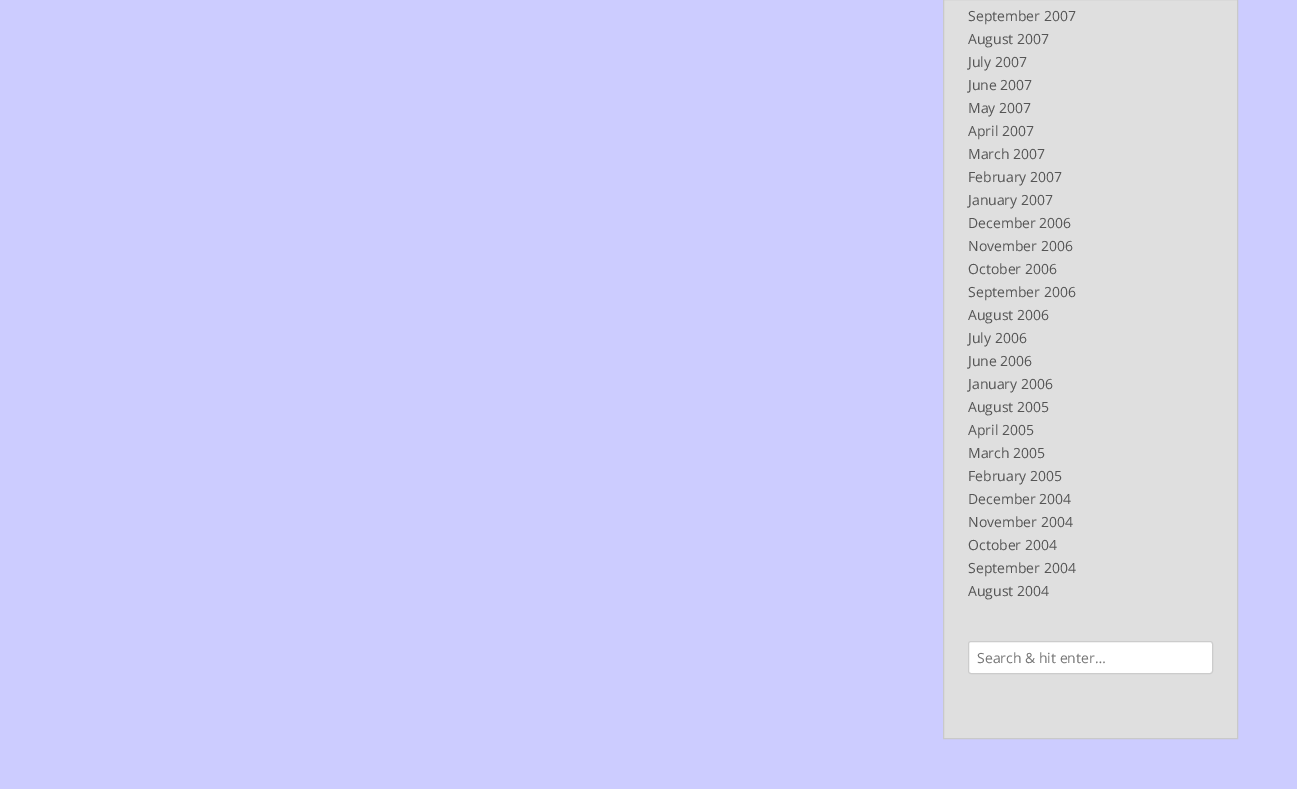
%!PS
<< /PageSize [1297 789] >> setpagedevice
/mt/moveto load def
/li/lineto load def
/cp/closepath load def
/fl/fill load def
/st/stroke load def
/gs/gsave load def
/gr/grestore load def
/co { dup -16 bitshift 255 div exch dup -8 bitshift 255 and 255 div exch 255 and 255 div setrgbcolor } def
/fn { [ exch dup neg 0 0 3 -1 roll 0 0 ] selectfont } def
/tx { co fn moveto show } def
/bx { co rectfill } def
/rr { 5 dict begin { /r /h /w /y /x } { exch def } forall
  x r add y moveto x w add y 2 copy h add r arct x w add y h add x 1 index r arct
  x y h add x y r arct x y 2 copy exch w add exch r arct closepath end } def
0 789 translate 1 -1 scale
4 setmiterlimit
0 0 1297 789 16#CCCCFF bx
16#DFDFDF co
943.5 -.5 mt 1237.5 -.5 li 1237.5 738.5 li 943.5 738.5 li cp gs fl gr
16#C9C9C9 co
st
16#FFFFFF co
968.5 641.5 244 32 2.5 rr gs fl gr
16#CCCCCC co
st
(September 2007) 968 21 /OpenSans-Regular 14 16#555555 tx
(August 2007) 968 44 /OpenSans-Regular 14 16#555555 tx
(July 2007) 968 67 /OpenSans-Regular 14 16#555555 tx
(June 2007) 968 90 /OpenSans-Regular 14 16#555555 tx
(May 2007) 968 113 /OpenSans-Regular 14 16#555555 tx
(April 2007) 968 136 /OpenSans-Regular 14 16#555555 tx
(March 2007) 968 159 /OpenSans-Regular 14 16#555555 tx
(February 2007) 968 182 /OpenSans-Regular 14 16#555555 tx
(January 2007) 968 205 /OpenSans-Regular 14 16#555555 tx
(December 2006) 968 228 /OpenSans-Regular 14 16#555555 tx
(November 2006) 968 251 /OpenSans-Regular 14 16#555555 tx
(October 2006) 968 274 /OpenSans-Regular 14 16#555555 tx
(September 2006) 968 297 /OpenSans-Regular 14 16#555555 tx
(August 2006) 968 320 /OpenSans-Regular 14 16#555555 tx
(July 2006) 968 343 /OpenSans-Regular 14 16#555555 tx
(June 2006) 968 366 /OpenSans-Regular 14 16#555555 tx
(January 2006) 968 389 /OpenSans-Regular 14 16#555555 tx
(August 2005) 968 412 /OpenSans-Regular 14 16#555555 tx
(April 2005) 968 435 /OpenSans-Regular 14 16#555555 tx
(March 2005) 968 458 /OpenSans-Regular 14 16#555555 tx
(February 2005) 968 481 /OpenSans-Regular 14 16#555555 tx
(December 2004) 968 504 /OpenSans-Regular 14 16#555555 tx
(November 2004) 968 527 /OpenSans-Regular 14 16#555555 tx
(October 2004) 968 550 /OpenSans-Regular 14 16#555555 tx
(September 2004) 968 573 /OpenSans-Regular 14 16#555555 tx
(August 2004) 968 596 /OpenSans-Regular 14 16#555555 tx
(Search & hit enter…) 977 663 /OpenSans-Regular 14 16#757575 tx
showpage
